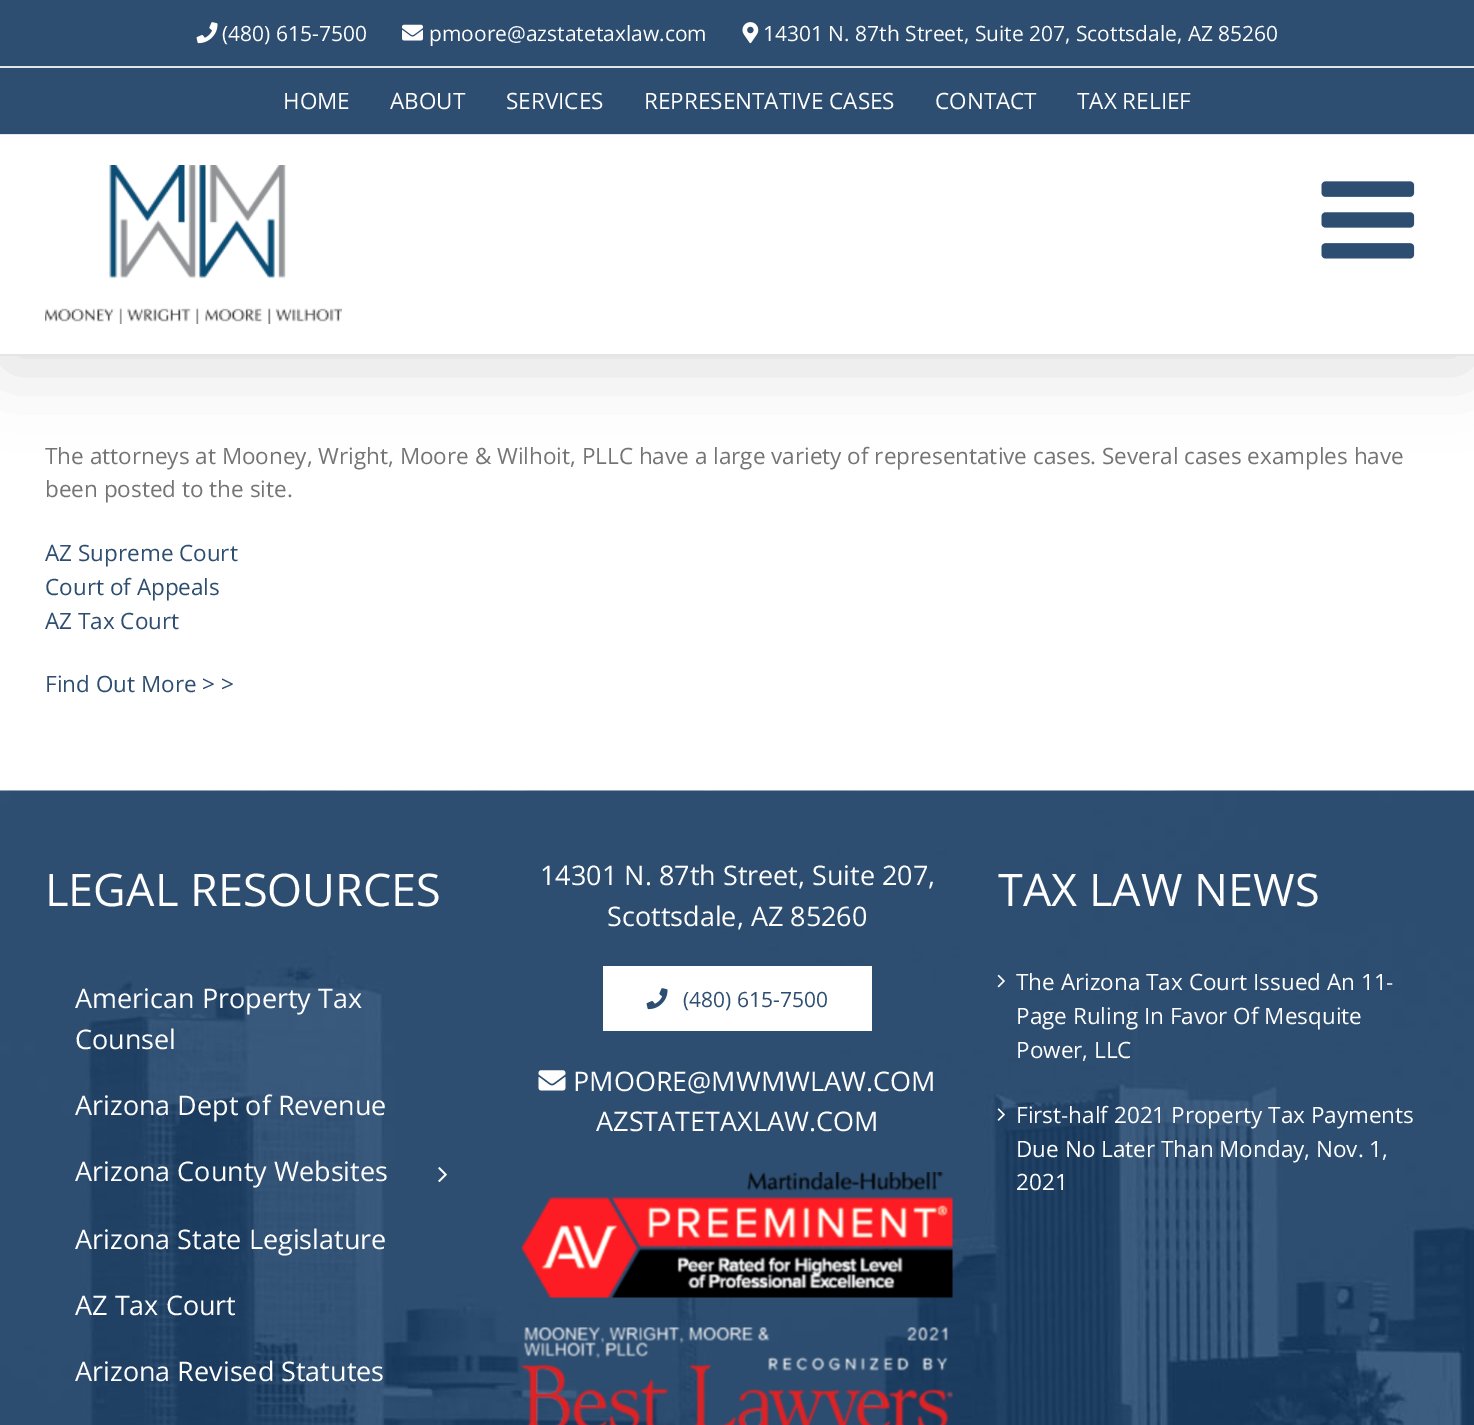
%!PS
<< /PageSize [1474 1425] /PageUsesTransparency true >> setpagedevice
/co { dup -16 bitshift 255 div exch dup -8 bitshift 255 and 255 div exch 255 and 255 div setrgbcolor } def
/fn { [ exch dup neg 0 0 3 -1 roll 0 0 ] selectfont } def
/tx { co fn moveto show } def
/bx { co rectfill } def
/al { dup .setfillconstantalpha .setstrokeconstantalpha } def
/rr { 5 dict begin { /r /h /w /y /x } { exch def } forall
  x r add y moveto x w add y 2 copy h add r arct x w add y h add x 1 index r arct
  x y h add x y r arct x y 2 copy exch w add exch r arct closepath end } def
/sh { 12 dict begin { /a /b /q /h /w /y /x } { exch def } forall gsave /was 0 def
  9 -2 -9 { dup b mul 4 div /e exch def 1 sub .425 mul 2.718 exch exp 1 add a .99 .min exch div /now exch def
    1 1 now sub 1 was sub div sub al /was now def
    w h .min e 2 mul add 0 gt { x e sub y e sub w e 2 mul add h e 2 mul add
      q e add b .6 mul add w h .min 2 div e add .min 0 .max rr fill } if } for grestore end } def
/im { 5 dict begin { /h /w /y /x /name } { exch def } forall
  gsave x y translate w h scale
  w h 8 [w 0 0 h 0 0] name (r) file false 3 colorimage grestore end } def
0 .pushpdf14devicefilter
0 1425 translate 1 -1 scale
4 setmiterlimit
0 0 1474 1425 16#FFFFFF bx
16#000000 co
3 18 1469 350 0 37.5 .14 sh
0 0 1474 134 16#2D4E71 bx
0 134 1474 1 16#E5E5E5 bx
0 66 1474 2 16#E5E5E5 bx
(media/1.raw) 196 22 22 22 im
(media/2.raw) 402 24 21 17 im
(media/3.raw) 742 22 17 22 im
0 135 1474 219 16#FFFFFF bx
0 354 1474 2 16#E5E5E5 bx
(media/4.raw) 45 165 297 159 im
(media/5.raw) 1321 181 94 78 im
(media/6.raw) 0 790 1474 635 im
(media/7.raw) 438 1167 9 15 im
603 966 269 65 16#FFFFFF bx
(media/8.raw) 646 988 22 22 im
(media/9.raw) 538 1070 28 21 im
(media/10.raw) 521 1172 432 126 im
(media/11.raw) 521 1327 432 98 im
(media/12.raw) 997 974 8 14 im
(media/13.raw) 997 1108 8 13 im
(\(480\) 615-7500) 222 41 /OpenSans-Regular 21 16#FFFFFF tx
(pmoore@azstatetaxlaw.com) 429 41 /OpenSans-Regular 21 16#FFFFFF tx
(14301 N. 87th Street, Suite 207, Scottsdale, AZ 85260) 763 41 /OpenSans-Regular 21 16#FFFFFF tx
(HOME) 283 109 /OpenSans-Regular 22.5 16#FFFFFF tx
(ABOUT) 390 109 /OpenSans-Regular 22.5 16#FFFFFF tx
(SERVICES) 506 109 /OpenSans-Regular 22.5 16#FFFFFF tx
(REPRESENTATIVE CASES) 644 109 /OpenSans-Regular 22.5 16#FFFFFF tx
(CONTACT) 935 109 /OpenSans-Regular 22.5 16#FFFFFF tx
(TAX RELIEF) 1077 109 /OpenSans-Regular 22.5 16#FFFFFF tx
(The attorneys at Mooney, Wright, Moore & Wilhoit, PLLC have a large variety of representative cases. Several cases examples have) 45 464 /OpenSans-Regular 22.5 16#747474 tx
(been posted to the site.) 45 497 /OpenSans-Regular 22.5 16#747474 tx
(AZ Supreme Court) 45 561 /OpenSans-Regular 22.5 16#2D4E71 tx
(Court of Appeals) 45 595 /OpenSans-Regular 22.5 16#2D4E71 tx
(AZ Tax Court) 45 629 /OpenSans-Regular 22.5 16#2D4E71 tx
(Find Out More > >) 45 692 /OpenSans-Regular 22.5 16#2D4E71 tx
(LEGAL RESOURCES) 45 906 /OpenSans-Regular 45 16#FFFFFF tx
(American Property Tax) 75 1008 /OpenSans-Regular 27 16#FFFFFF tx
(Counsel) 75 1049 /OpenSans-Regular 27 16#FFFFFF tx
(Arizona Dept of Revenue) 75 1115 /OpenSans-Regular 27 16#FFFFFF tx
(Arizona County Websites) 75 1181 /OpenSans-Regular 27 16#FFFFFF tx
(Arizona State Legislature) 75 1249 /OpenSans-Regular 27 16#FFFFFF tx
(AZ Tax Court) 75 1315 /OpenSans-Regular 27 16#FFFFFF tx
(Arizona Revised Statutes) 75 1381 /OpenSans-Regular 27 16#FFFFFF tx
(14301 N. 87th Street, Suite 207,) 540 885 /OpenSans-Regular 27 16#FFFFFF tx
(Scottsdale, AZ 85260) 607 926 /OpenSans-Regular 27 16#FFFFFF tx
(\(480\) 615-7500) 683 1007 /OpenSans-Regular 21 16#2D4E71 tx
(PMOORE@MWMWLAW.COM) 573 1091 /OpenSans-Regular 27 16#FFFFFF tx
(AZSTATETAXLAW.COM) 596 1131 /OpenSans-Regular 27 16#FFFFFF tx
(TAX LAW NEWS) 998 906 /OpenSans-Regular 45 16#FFFFFF tx
(The Arizona Tax Court Issued An 11-) 1016 990 /OpenSans-Regular 22.5 16#FFFFFF tx
(Page Ruling In Favor Of Mesquite) 1016 1024 /OpenSans-Regular 22.5 16#FFFFFF tx
(Power, LLC) 1016 1058 /OpenSans-Regular 22.5 16#FFFFFF tx
(First-half 2021 Property Tax Payments) 1016 1123 /OpenSans-Regular 22.5 16#FFFFFF tx
(Due No Later Than Monday, Nov. 1,) 1016 1157 /OpenSans-Regular 22.5 16#FFFFFF tx
(2021) 1016 1190 /OpenSans-Regular 22.5 16#FFFFFF tx
.poppdf14devicefilter showpage
